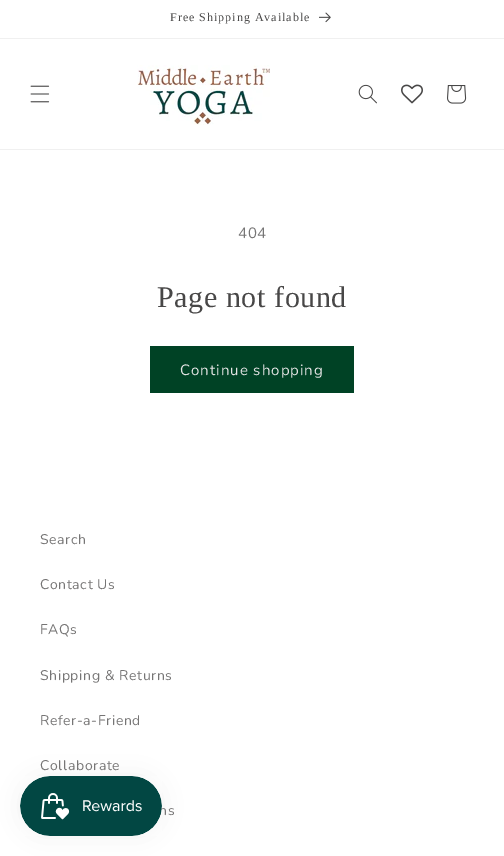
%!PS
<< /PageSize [504 856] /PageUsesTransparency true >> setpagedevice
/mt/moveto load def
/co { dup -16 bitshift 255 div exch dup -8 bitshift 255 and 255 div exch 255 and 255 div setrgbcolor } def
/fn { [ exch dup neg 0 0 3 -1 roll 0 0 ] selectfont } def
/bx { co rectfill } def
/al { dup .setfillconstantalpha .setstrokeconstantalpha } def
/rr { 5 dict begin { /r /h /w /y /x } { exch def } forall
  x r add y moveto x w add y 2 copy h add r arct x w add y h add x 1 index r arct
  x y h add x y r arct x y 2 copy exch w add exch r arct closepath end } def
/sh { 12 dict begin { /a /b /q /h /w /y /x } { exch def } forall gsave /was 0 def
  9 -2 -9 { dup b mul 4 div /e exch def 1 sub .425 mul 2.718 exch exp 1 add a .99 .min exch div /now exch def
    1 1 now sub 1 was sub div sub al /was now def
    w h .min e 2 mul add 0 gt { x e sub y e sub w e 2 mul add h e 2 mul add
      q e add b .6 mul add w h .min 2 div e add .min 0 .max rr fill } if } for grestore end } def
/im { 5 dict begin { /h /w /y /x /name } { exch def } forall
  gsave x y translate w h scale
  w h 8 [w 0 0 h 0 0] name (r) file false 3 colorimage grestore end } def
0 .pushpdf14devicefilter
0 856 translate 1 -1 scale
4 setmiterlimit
0 0 504 856 16#FFFFFF bx
0 38 504 1 16#F0F0F0 bx
(media/1.raw) 319 12 12 11 im
0 149 504 1 16#F0F0F0 bx
(media/2.raw) 30 85 20 18 im
(media/3.raw) 137 65 133 60 im
(media/4.raw) 358 84 19 20 im
(media/5.raw) 401 84 22 20 im
(media/6.raw) 447 85 20 19 im
150 346 204 47 16#004225 bx
16#000000 co
20 776 142 60 30 12.5 .05 sh
/LiberationSerif-Regular 12 fn
16#484747 co
170 21 mt 1 0 (Free Shipping Available) ashow
/Nunito-Regular 15 fn
16#767575 co
238 238 mt .6 0 (404) ashow
/LiberationSerif-Regular 30 fn
16#484747 co
157 307 mt .6 0 (Page not found) ashow
/Nunito-Regular 15 fn
16#E4E4E4 co
180 375 mt 1 0 (Continue shopping) ashow
/Nunito-Regular 14 fn
16#767575 co
40 544 mt .6 0 (Search) ashow
40 589 mt .6 0 (Contact Us) ashow
40 634 mt .6 0 (FAQs) ashow
40 680 mt .6 0 (Shipping & Returns) ashow
40 725 mt .6 0 (Refer-a-Friend) ashow
40 770 mt .6 0 (Collaborate) ashow
159 815 mt .6 0 (ns) ashow
(media/7.raw) 20 776 142 60 im
.poppdf14devicefilter showpage
